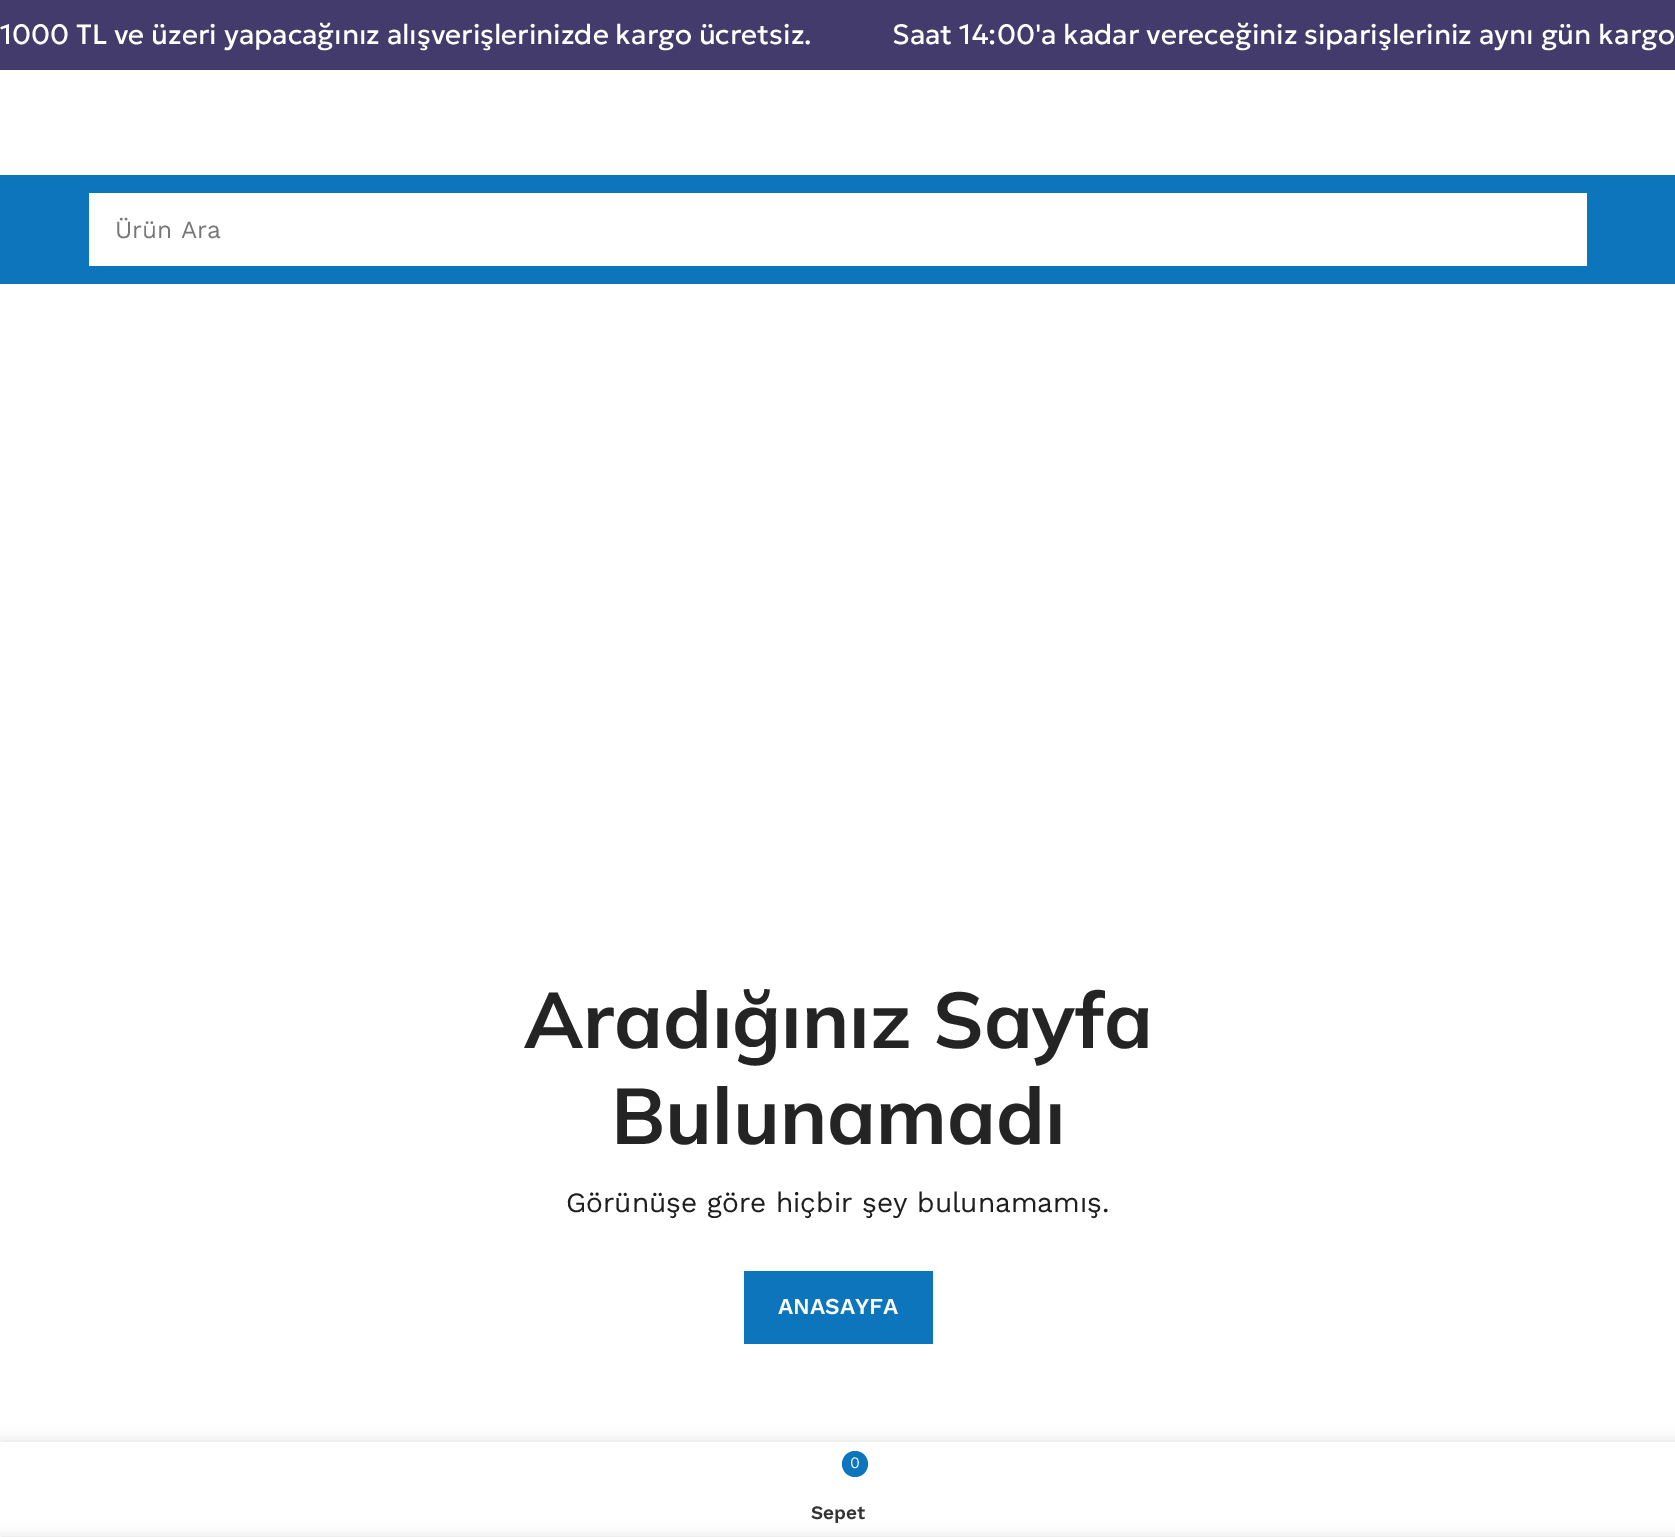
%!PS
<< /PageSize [1675 1537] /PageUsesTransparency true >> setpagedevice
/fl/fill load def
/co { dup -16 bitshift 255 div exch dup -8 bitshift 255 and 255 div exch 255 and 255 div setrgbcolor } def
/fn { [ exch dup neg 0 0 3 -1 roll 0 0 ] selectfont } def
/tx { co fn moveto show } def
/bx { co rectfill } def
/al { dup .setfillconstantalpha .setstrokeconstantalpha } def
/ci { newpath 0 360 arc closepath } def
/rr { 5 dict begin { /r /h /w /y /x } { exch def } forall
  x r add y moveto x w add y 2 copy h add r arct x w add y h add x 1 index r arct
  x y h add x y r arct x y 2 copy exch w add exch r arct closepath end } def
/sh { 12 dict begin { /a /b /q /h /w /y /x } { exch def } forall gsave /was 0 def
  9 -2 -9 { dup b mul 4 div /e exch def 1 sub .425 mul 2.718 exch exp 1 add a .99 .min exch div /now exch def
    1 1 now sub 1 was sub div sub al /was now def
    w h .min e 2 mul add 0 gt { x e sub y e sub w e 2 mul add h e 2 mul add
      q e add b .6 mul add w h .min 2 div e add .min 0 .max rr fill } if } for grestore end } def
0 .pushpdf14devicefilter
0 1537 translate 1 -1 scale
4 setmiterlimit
0 0 1675 1537 16#FFFFFF bx
0 0 1675 70 16#423B6B bx
0 175 1675 109 16#0C75BB bx
89 193 1498 73 16#FFFFFF bx
744 1271 189 73 16#0C75BB bx
16#000000 co
0 1442 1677 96 0 8 .12 sh
0 1442 1675 95 16#FFFFFF bx
16#0C75BB co
855 1464 13 ci fl
16#000000 co
0 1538 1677 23 0 8 .14 sh
(1000 TL ve üzeri yapacağınız alışverişlerinizde kargo ücretsiz.) 0 44 /Geologica-Regular 28 16#FFFFFF tx
(Saat 14:00'a kadar vereceğiniz siparişleriniz aynı gün kargo) 892 44 /Geologica-Regular 28 16#FFFFFF tx
(Ürün Ara) 115 238 /WorkSans-Regular 24.5 16#777777 tx
(Aradığınız Sayfa) 524 1048 /Mulish-Bold 78.75 16#242424 tx
(Bulunamadı) 611 1144 /Mulish-Bold 78.75 16#242424 tx
(Görünüşe göre hiçbir şey bulunamamış.) 566 1212 /WorkSans-Regular 28 16#1E1E1E tx
(ANASAYFA) 778 1314 /WorkSans-SemiBold 22.75 16#FFFFFF tx
(0) 850 1468 /WorkSans-Regular 16 16#FFFFFF tx
(Sepet) 811 1519 /WorkSans-SemiBold 19 16#333333 tx
.poppdf14devicefilter showpage
